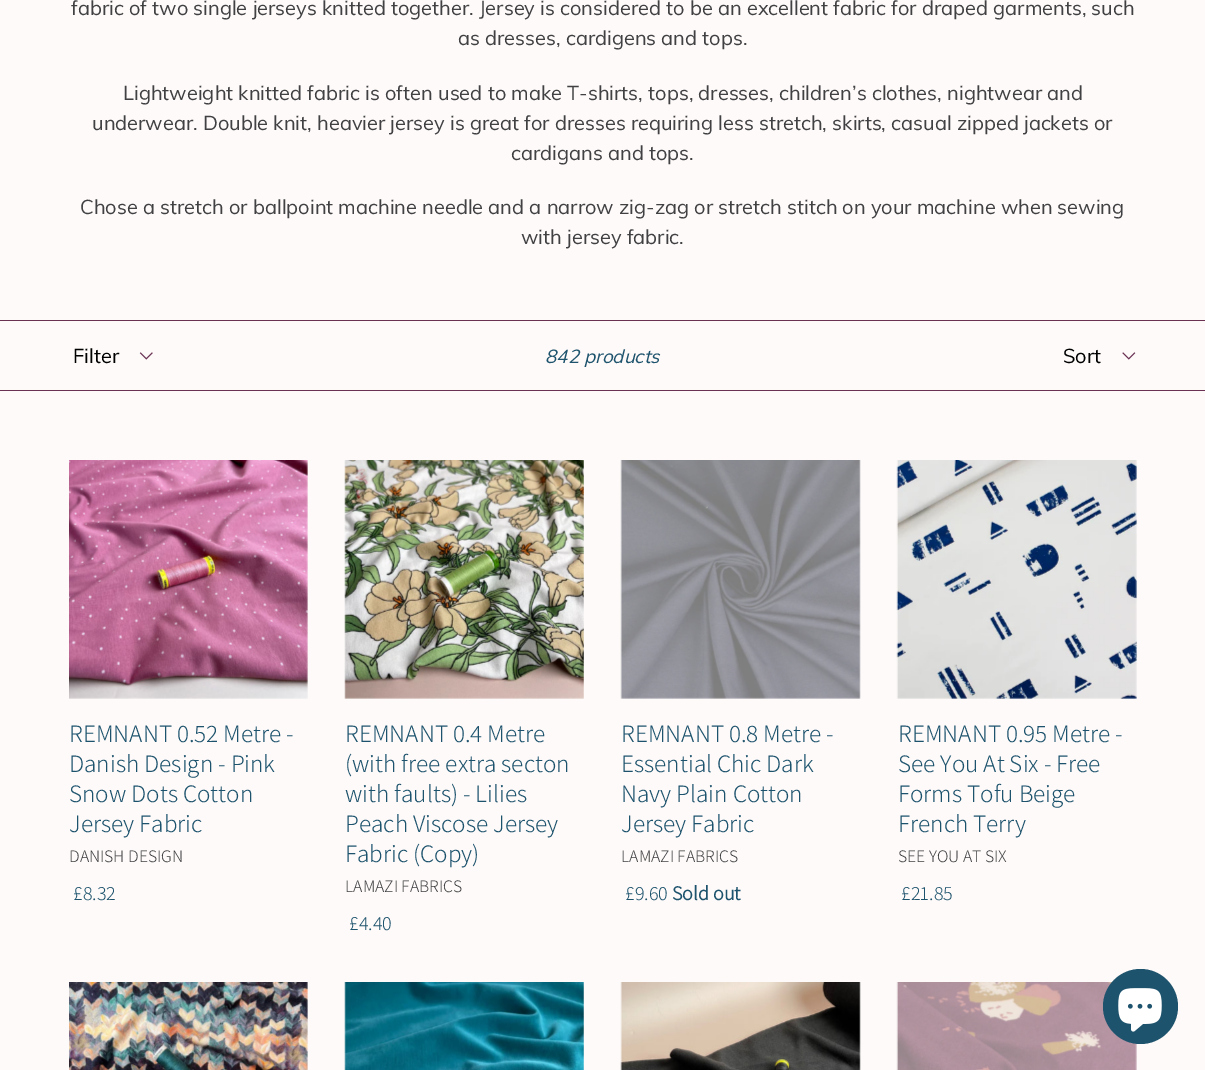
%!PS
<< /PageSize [1205 1070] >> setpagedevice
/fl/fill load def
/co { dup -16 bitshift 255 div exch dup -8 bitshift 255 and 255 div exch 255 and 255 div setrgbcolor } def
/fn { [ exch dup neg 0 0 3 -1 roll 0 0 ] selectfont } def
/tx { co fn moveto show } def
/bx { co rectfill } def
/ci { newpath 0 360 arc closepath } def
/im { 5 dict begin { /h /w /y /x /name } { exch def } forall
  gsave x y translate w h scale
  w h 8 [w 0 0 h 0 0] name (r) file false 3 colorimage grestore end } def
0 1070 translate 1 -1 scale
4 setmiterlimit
0 0 1205 1070 16#FDFAF9 bx
0 320 1205 1 16#6A3153 bx
0 390 1205 1 16#6A3153 bx
(media/1.raw) 139 352 14 8 im
(media/2.raw) 1122 352 14 8 im
(media/3.raw) 69 460 239 239 im
(media/4.raw) 344 460 240 239 im
(media/5.raw) 620 460 241 239 im
(media/6.raw) 896 460 241 239 im
(media/7.raw) 69 982 239 88 im
(media/8.raw) 344 982 240 88 im
(media/9.raw) 620 982 241 88 im
(media/10.raw) 896 982 241 88 im
16#1E536D co
1140.5 1006.5 37.5 ci fl
(media/11.raw) 1118 988 44 44 im
(fabric of two single jerseys knitted together. Jersey is considered to be an excellent fabric for draped garments, such) 71 15 /Muli-Regular 20 16#414042 tx
(as dresses, cardigens and tops.) 458 45 /Muli-Regular 20 16#414042 tx
(Lightweight knitted fabric is often used to make T-shirts, tops, dresses, children’s clothes, nightwear and) 123 100 /Muli-Regular 20 16#414042 tx
(underwear. Double knit, heavier jersey is great for dresses requiring less stretch, skirts, casual zipped jackets or) 92 130 /Muli-Regular 20 16#414042 tx
(cardigans and tops.) 511 160 /Muli-Regular 20 16#414042 tx
(Chose a stretch or ballpoint machine needle and a narrow zig-zag or stretch stitch on your machine when sewing) 80 214 /Muli-Regular 20 16#414042 tx
(with jersey fabric.) 521 244 /Muli-Regular 20 16#414042 tx
(Filter) 73 363 /Muli-Regular 20 16#000000 tx
(842 products) 545 363 /Muli-Italic 18.75 16#1E536D tx
(Sort) 1063 363 /Muli-Regular 20 16#000000 tx
(REMNANT 0.52 Metre -) 69 742 /Assistant-Light 25 16#1E536D tx
(Danish Design - Pink) 69 772 /Assistant-Light 25 16#1E536D tx
(Snow Dots Cotton) 69 802 /Assistant-Light 25 16#1E536D tx
(Jersey Fabric) 69 832 /Assistant-Light 25 16#1E536D tx
(DANISH DESIGN) 69 862 /Assistant-Light 17.5 16#414042 tx
(£8.32) 73 900 /Assistant-Light 20 16#1E536D tx
(REMNANT 0.4 Metre) 345 742 /Assistant-Light 25 16#1E536D tx
(\(with free extra secton) 345 772 /Assistant-Light 25 16#1E536D tx
(with faults\) - Lilies) 345 802 /Assistant-Light 25 16#1E536D tx
(Peach Viscose Jersey) 345 832 /Assistant-Light 25 16#1E536D tx
(Fabric \(Copy\)) 345 862 /Assistant-Light 25 16#1E536D tx
(LAMAZI FABRICS) 345 892 /Assistant-Light 17.5 16#414042 tx
(£4.40) 349 930 /Assistant-Light 20 16#1E536D tx
(REMNANT 0.8 Metre -) 621 742 /Assistant-Light 25 16#1E536D tx
(Essential Chic Dark) 621 772 /Assistant-Light 25 16#1E536D tx
(Navy Plain Cotton) 621 802 /Assistant-Light 25 16#1E536D tx
(Jersey Fabric) 621 832 /Assistant-Light 25 16#1E536D tx
(LAMAZI FABRICS) 621 862 /Assistant-Light 17.5 16#414042 tx
(£9.60) 625 900 /Assistant-Light 20 16#1E536D tx
(Sold out) 672 900 /Assistant-Bold 20 16#1E536D tx
(REMNANT 0.95 Metre -) 898 742 /Assistant-Light 25 16#1E536D tx
(See You At Six - Free) 898 772 /Assistant-Light 25 16#1E536D tx
(Forms Tofu Beige) 898 802 /Assistant-Light 25 16#1E536D tx
(French Terry) 898 832 /Assistant-Light 25 16#1E536D tx
(SEE YOU AT SIX) 898 862 /Assistant-Light 17.5 16#414042 tx
(£21.85) 901 900 /Assistant-Light 20 16#1E536D tx
showpage
